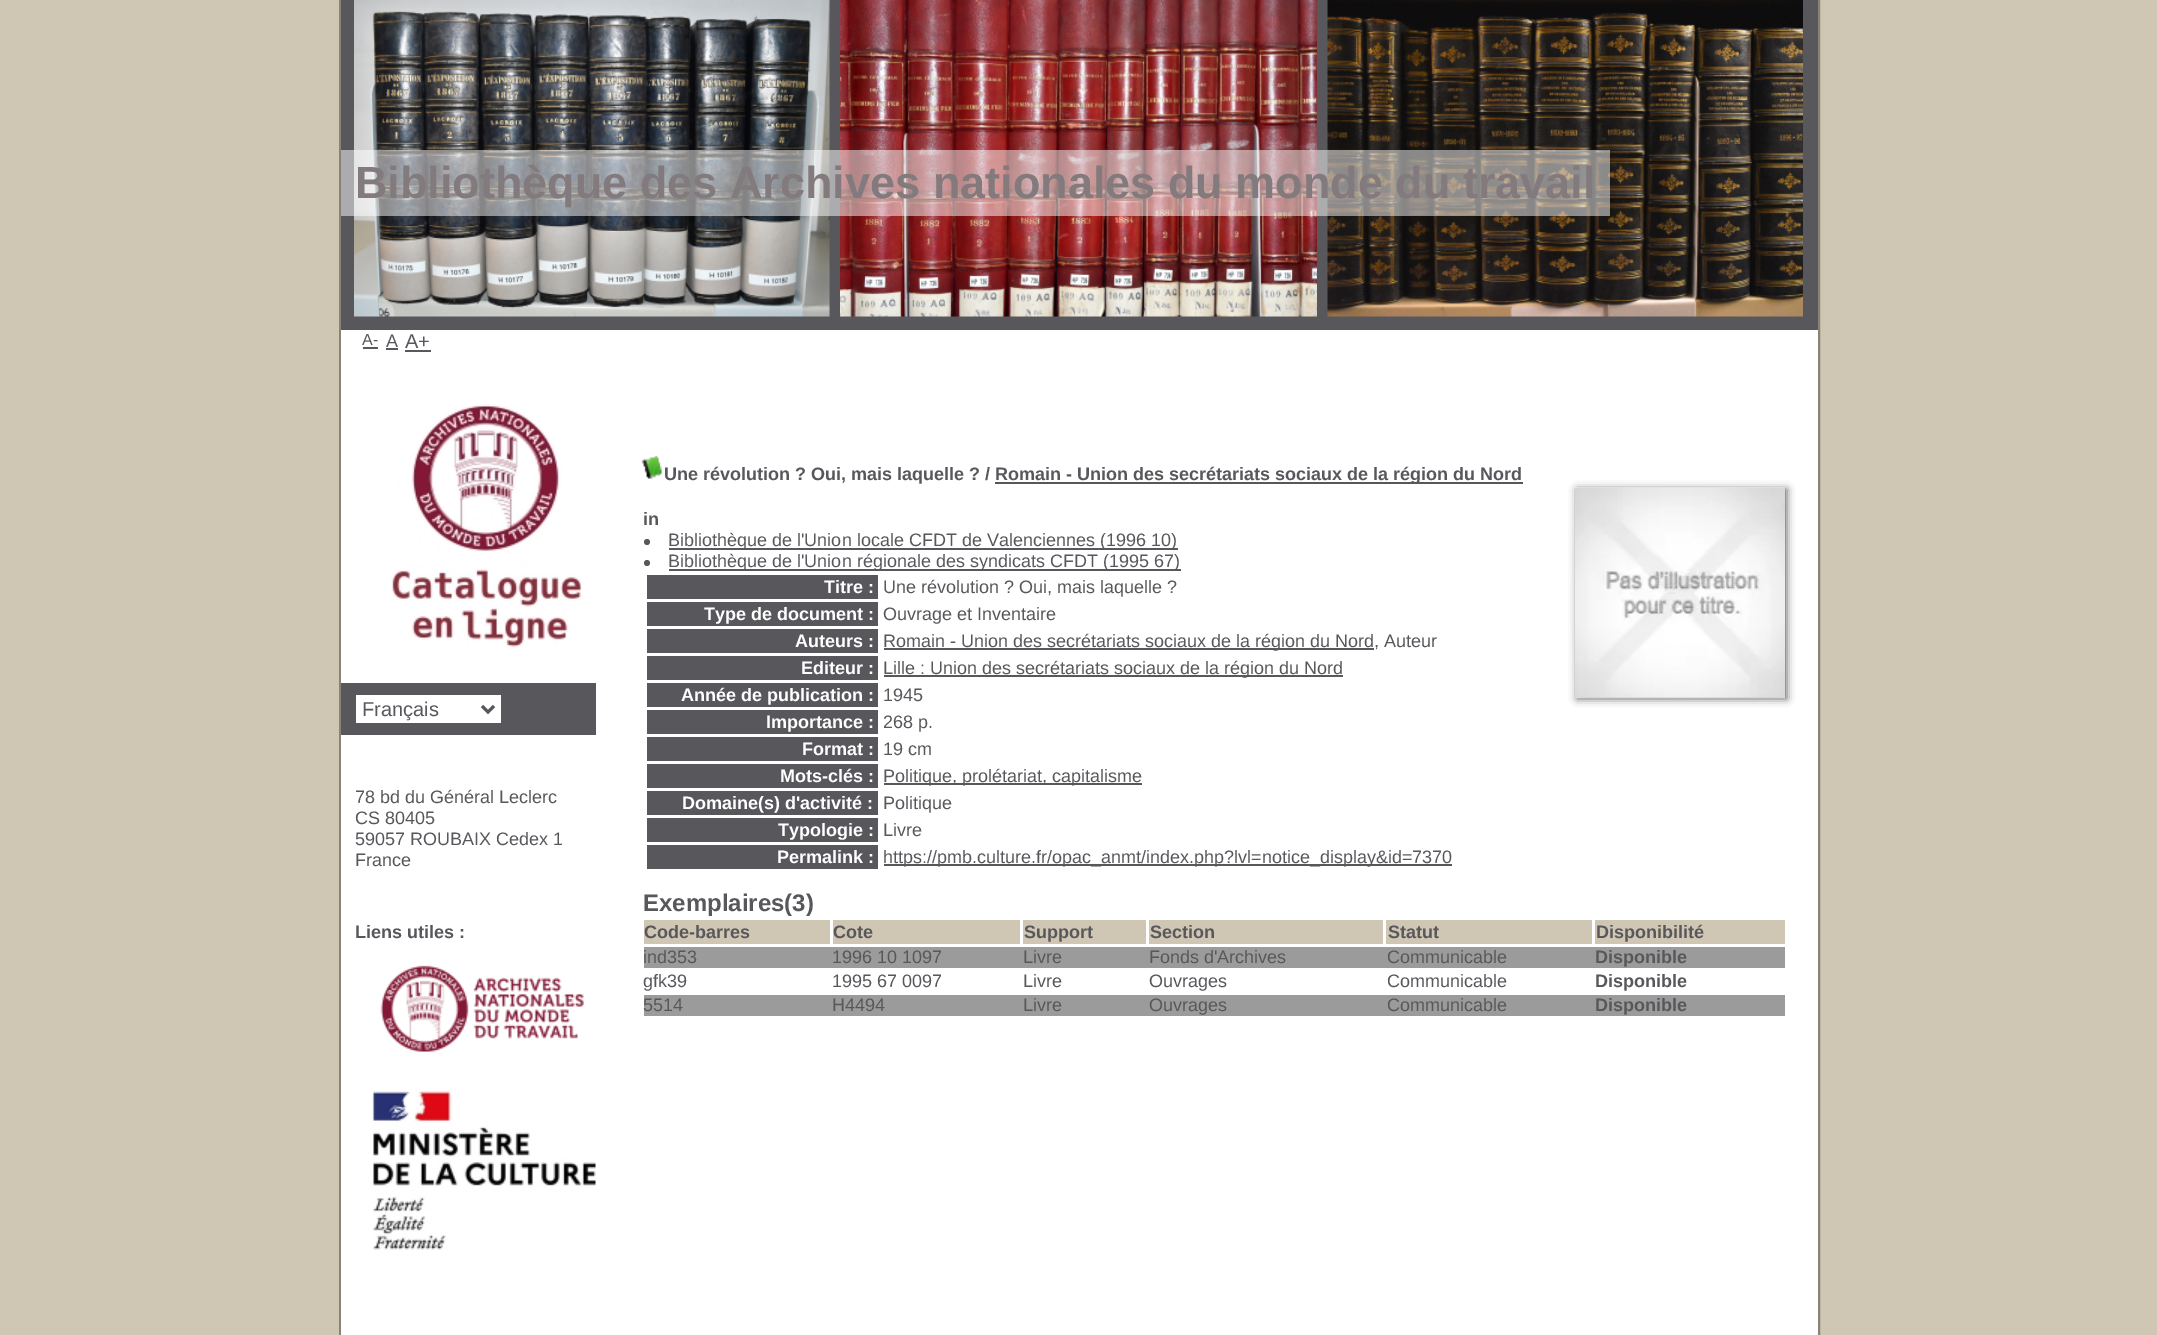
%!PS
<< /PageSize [2157 1335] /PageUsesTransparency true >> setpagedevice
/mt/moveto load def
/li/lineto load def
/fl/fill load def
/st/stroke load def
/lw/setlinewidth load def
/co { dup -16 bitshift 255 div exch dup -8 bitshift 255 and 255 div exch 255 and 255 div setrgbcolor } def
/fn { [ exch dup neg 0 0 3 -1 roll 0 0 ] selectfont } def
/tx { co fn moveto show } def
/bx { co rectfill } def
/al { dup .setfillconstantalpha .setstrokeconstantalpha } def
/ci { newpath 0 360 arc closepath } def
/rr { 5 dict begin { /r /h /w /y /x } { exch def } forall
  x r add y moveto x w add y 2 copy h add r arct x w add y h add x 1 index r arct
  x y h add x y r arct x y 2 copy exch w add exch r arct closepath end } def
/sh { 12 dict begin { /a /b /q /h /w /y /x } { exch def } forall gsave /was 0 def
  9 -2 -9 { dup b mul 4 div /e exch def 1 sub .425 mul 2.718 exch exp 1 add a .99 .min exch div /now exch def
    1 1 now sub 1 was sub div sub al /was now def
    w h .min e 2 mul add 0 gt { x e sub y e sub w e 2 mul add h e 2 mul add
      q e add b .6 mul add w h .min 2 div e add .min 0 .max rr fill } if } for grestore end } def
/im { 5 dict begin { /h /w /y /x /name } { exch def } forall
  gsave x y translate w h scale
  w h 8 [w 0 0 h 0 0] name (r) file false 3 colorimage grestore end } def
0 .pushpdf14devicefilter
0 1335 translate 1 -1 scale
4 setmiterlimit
0 0 2157 1335 16#D0C6B4 bx
16#898377 co
2 lw
340 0 1479 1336 rectstroke
341 330 1477 1005 16#FFFFFF bx
341 0 1477 330 16#58585C bx
(media/1.raw) 354 0 476 317 im
(media/2.raw) 840 0 477 317 im
(media/3.raw) 1327 0 476 317 im
0.5 al
341 150 1269 66 16#FFFFFF bx
1 al
(media/4.raw) 641 456 21 23 im
995 482 528 2 16#58585C bx
647 542 3 ci fl
669 548 509 2 16#58585C bx
647 563 3 ci fl
669 569 512 2 16#58585C bx
647 575 231 24 16#58585C bx
647 602 231 24 16#58585C bx
647 629 231 24 16#58585C bx
884 648 490 2 16#58585C bx
647 656 231 24 16#58585C bx
884 675 459 2 16#58585C bx
647 683 231 24 16#58585C bx
647 710 231 24 16#58585C bx
647 737 231 24 16#58585C bx
647 764 231 24 16#58585C bx
884 783 258 2 16#58585C bx
647 791 231 24 16#58585C bx
647 818 231 24 16#58585C bx
647 845 231 24 16#58585C bx
884 864 568 2 16#58585C bx
16#666666 co
1577 489 210 210 0 4 1 sh
(media/5.raw) 1575 487 210 211 im
644 920 186 24 16#D0C6B4 bx
833 920 187 24 16#D0C6B4 bx
1023 920 123 24 16#D0C6B4 bx
1149 920 234 24 16#D0C6B4 bx
1386 920 206 24 16#D0C6B4 bx
1595 920 190 24 16#D0C6B4 bx
644 947 1141 21 16#9B9B9B bx
644 995 1141 21 16#9B9B9B bx
363 347 15 2 16#58585C bx
386 348 12 2 16#58585C bx
405 350 26 2 16#58585C bx
(media/6.raw) 391 404 191 243 im
341 683 255 52 16#58585C bx
356 695 145 28 16#FFFFFF bx
16#58585C co
3 lw
482 706 mt 488 712 li 494 706 li st
(media/7.raw) 380 965 204 87 im
(media/8.raw) 372 1090 224 160 im
(Bibliothèque des Archives nationales du monde du travail) 355 198 /LiberationSans-Bold 45 16#827A7C tx
(Une révolution ? Oui, mais laquelle ? /) 664 480 /LiberationSans-Bold 18 16#58585C tx
(Romain - Union des secrétariats sociaux de la région du Nord) 995 480 /LiberationSans-Bold 18 16#58585C tx
(in) 643 525 /LiberationSans-Bold 18 16#58585C tx
(Bibliothèque de l'Union locale CFDT de Valenciennes \(1996 10\)) 668 546 /LiberationSans-Regular 18 16#58585C tx
(Bibliothèque de l'Union régionale des syndicats CFDT \(1995 67\)) 668 567 /LiberationSans-Regular 18 16#58585C tx
(Titre :) 824 593 /LiberationSans-Bold 18 16#FFFFFF tx
(Une révolution ? Oui, mais laquelle ?) 883 593 /LiberationSans-Regular 18 16#58585C tx
(Type de document :) 704 620 /LiberationSans-Bold 18 16#FFFFFF tx
(Ouvrage et Inventaire) 883 620 /LiberationSans-Regular 18 16#58585C tx
(Auteurs :) 795 647 /LiberationSans-Bold 18 16#FFFFFF tx
(Romain - Union des secrétariats sociaux de la région du Nord, Auteur) 883 647 /LiberationSans-Regular 18 16#58585C tx
(Editeur :) 801 674 /LiberationSans-Bold 18 16#FFFFFF tx
(Lille : Union des secrétariats sociaux de la région du Nord) 883 674 /LiberationSans-Regular 18 16#58585C tx
(Année de publication :) 681 701 /LiberationSans-Bold 18 16#FFFFFF tx
(1945) 883 701 /LiberationSans-Regular 18 16#58585C tx
(Importance :) 766 728 /LiberationSans-Bold 18 16#FFFFFF tx
(268 p.) 883 728 /LiberationSans-Regular 18 16#58585C tx
(Format :) 802 755 /LiberationSans-Bold 18 16#FFFFFF tx
(19 cm) 883 755 /LiberationSans-Regular 18 16#58585C tx
(Mots-clés :) 780 782 /LiberationSans-Bold 18 16#FFFFFF tx
(Politique, prolétariat, capitalisme) 883 782 /LiberationSans-Regular 18 16#58585C tx
(Domaine\(s\) d'activité :) 682 809 /LiberationSans-Bold 18 16#FFFFFF tx
(Politique) 883 809 /LiberationSans-Regular 18 16#58585C tx
(Typologie :) 778 836 /LiberationSans-Bold 18 16#FFFFFF tx
(Livre) 883 836 /LiberationSans-Regular 18 16#58585C tx
(Permalink :) 777 863 /LiberationSans-Bold 18 16#FFFFFF tx
(https://pmb.culture.fr/opac_anmt/index.php?lvl=notice_display&id=7370) 883 863 /LiberationSans-Regular 18 16#58585C tx
(Exemplaires\(3\)) 643 911 /LiberationSans-Bold 24 16#58585C tx
(Code-barres) 644 938 /LiberationSans-Bold 18 16#58585C tx
(Cote) 833 938 /LiberationSans-Bold 18 16#58585C tx
(Support) 1024 938 /LiberationSans-Bold 18 16#58585C tx
(Section) 1150 938 /LiberationSans-Bold 18 16#58585C tx
(Statut) 1388 938 /LiberationSans-Bold 18 16#58585C tx
(Disponibilité) 1596 938 /LiberationSans-Bold 18 16#58585C tx
(ind353) 643 963 /LiberationSans-Regular 18 16#58585C tx
(1996 10 1097) 832 963 /LiberationSans-Regular 18 16#58585C tx
(Livre) 1023 963 /LiberationSans-Regular 18 16#58585C tx
(Fonds d'Archives) 1149 963 /LiberationSans-Regular 18 16#58585C tx
(Communicable) 1387 963 /LiberationSans-Regular 18 16#58585C tx
(Disponible) 1595 963 /LiberationSans-Bold 18 16#58585C tx
(gfk39) 643 987 /LiberationSans-Regular 18 16#58585C tx
(1995 67 0097) 832 987 /LiberationSans-Regular 18 16#58585C tx
(Livre) 1023 987 /LiberationSans-Regular 18 16#58585C tx
(Ouvrages) 1149 987 /LiberationSans-Regular 18 16#58585C tx
(Communicable) 1387 987 /LiberationSans-Regular 18 16#58585C tx
(Disponible) 1595 987 /LiberationSans-Bold 18 16#58585C tx
(5514) 643 1011 /LiberationSans-Regular 18 16#58585C tx
(H4494) 832 1011 /LiberationSans-Regular 18 16#58585C tx
(Livre) 1023 1011 /LiberationSans-Regular 18 16#58585C tx
(Ouvrages) 1149 1011 /LiberationSans-Regular 18 16#58585C tx
(Communicable) 1387 1011 /LiberationSans-Regular 18 16#58585C tx
(Disponible) 1595 1011 /LiberationSans-Bold 18 16#58585C tx
(A-) 362 345 /LiberationSans-Regular 16 16#58585C tx
(A) 386 347 /LiberationSans-Regular 18 16#58585C tx
(A+) 405 348 /LiberationSans-Regular 20 16#58585C tx
(Français) 362 716 /LiberationSans-Regular 20 16#58585C tx
(78 bd du Général Leclerc) 355 803 /LiberationSans-Regular 18 16#58585C tx
(CS 80405) 355 824 /LiberationSans-Regular 18 16#58585C tx
(59057 ROUBAIX Cedex 1) 355 845 /LiberationSans-Regular 18 16#58585C tx
(France) 355 866 /LiberationSans-Regular 18 16#58585C tx
(Liens utiles :) 355 938 /LiberationSans-Bold 18 16#58585C tx
.poppdf14devicefilter showpage
